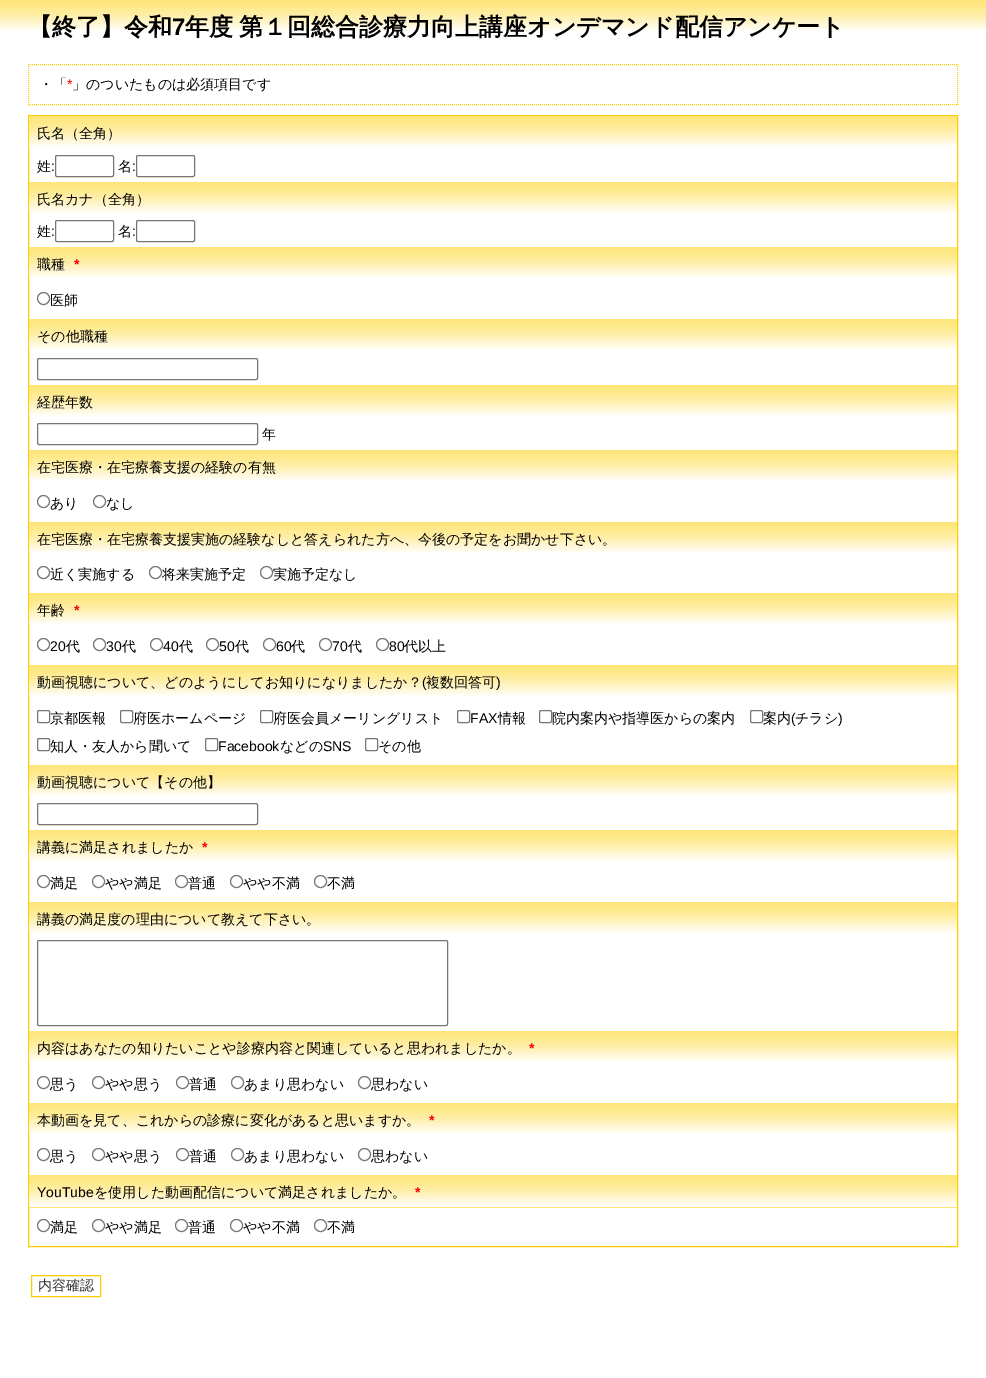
%!PS
<< /PageSize [986 1378] >> setpagedevice
/mt/moveto load def
/li/lineto load def
/st/stroke load def
/co { dup -16 bitshift 255 div exch dup -8 bitshift 255 and 255 div exch 255 and 255 div setrgbcolor } def
/fn { [ exch dup neg 0 0 3 -1 roll 0 0 ] selectfont } def
/tx { co fn moveto show } def
/bx { co rectfill } def
/ci { newpath 0 360 arc closepath } def
/rr { 5 dict begin { /r /h /w /y /x } { exch def } forall
  x r add y moveto x w add y 2 copy h add r arct x w add y h add x 1 index r arct
  x y h add x y r arct x y 2 copy exch w add exch r arct closepath end } def
/im { 5 dict begin { /h /w /y /x /name } { exch def } forall
  gsave x y translate w h scale
  w h 8 [w 0 0 h 0 0] name (r) file false 3 colorimage grestore end } def
0 1378 translate 1 -1 scale
4 setmiterlimit
0 0 986 1378 16#FFFFFF bx
(media/1.raw) 0 0 986 31 im
16#FFCC00 co
[1 1] 0 setdash
28 64.5 mt 958 64.5 li st
957.5 64 mt 957.5 105 li st
28 104.5 mt 958 104.5 li st
28.5 64 mt 28.5 105 li st
[] 0 setdash
28.5 115.5 929 1131 rectstroke
(media/2.raw) 29 116 928 31 im
16#767676 co
55.5 155.5 58 21 1.5 rr st
136.5 155.5 58 21 1.5 rr st
(media/2.raw) 29 182 928 31 im
55.5 220.5 58 21 1.5 rr st
136.5 220.5 58 21 1.5 rr st
(media/2.raw) 29 247 928 31 im
43.5 298.5 6 ci st
(media/2.raw) 29 319 928 31 im
37.5 358.5 220 21 1.5 rr st
(media/2.raw) 29 385 928 31 im
37.5 423.5 220 21 1.5 rr st
(media/2.raw) 29 450 928 31 im
43.5 501.5 6 ci st
99.5 501.5 6 ci st
(media/2.raw) 29 522 928 31 im
43.5 572.5 6 ci st
155.5 572.5 6 ci st
266.5 572.5 6 ci st
(media/2.raw) 29 593 928 31 im
43.5 644.5 6 ci st
99.5 644.5 6 ci st
156.5 644.5 6 ci st
212.5 644.5 6 ci st
269.5 644.5 6 ci st
325.5 644.5 6 ci st
382.5 644.5 6 ci st
(media/2.raw) 29 665 928 31 im
37.5 710.5 12 12 1.5 rr st
120.5 710.5 12 12 1.5 rr st
260.5 710.5 12 12 1.5 rr st
457.5 710.5 12 12 1.5 rr st
539.5 710.5 12 12 1.5 rr st
750.5 710.5 12 12 1.5 rr st
37.5 738.5 12 12 1.5 rr st
205.5 738.5 12 12 1.5 rr st
365.5 738.5 12 12 1.5 rr st
(media/2.raw) 29 765 928 31 im
37.5 803.5 220 21 1.5 rr st
(media/2.raw) 29 830 928 31 im
43.5 881.5 6 ci st
98.5 881.5 6 ci st
181.5 881.5 6 ci st
236.5 881.5 6 ci st
320.5 881.5 6 ci st
(media/2.raw) 29 902 928 31 im
37.5 940.5 410 85 1.5 rr st
(media/2.raw) 29 1031 928 31 im
43.5 1082.5 6 ci st
98.5 1082.5 6 ci st
182.5 1082.5 6 ci st
237.5 1082.5 6 ci st
364.5 1082.5 6 ci st
(media/2.raw) 29 1103 928 31 im
43.5 1154.5 6 ci st
98.5 1154.5 6 ci st
182.5 1154.5 6 ci st
237.5 1154.5 6 ci st
364.5 1154.5 6 ci st
(media/3.raw) 29 1175 928 33 im
43.5 1225.5 6 ci st
98.5 1225.5 6 ci st
181.5 1225.5 6 ci st
236.5 1225.5 6 ci st
320.5 1225.5 6 ci st
16#FFCC00 co
31.5 1275.5 69 21 rectstroke
(【終了】令和) 28 35 /WenQuanYiZenHei-Bold 24 16#000000 tx
(7) 172 35 /LiberationSans-Bold 24 16#000000 tx
/WenQuanYiZenHei-Bold 24 fn
185 35 mt -1 0 32 (年度 第１回総合診療力向上講座オンデマンド配信アンケート) widthshow
(・「) 39 89 /WenQuanYiZenHei-Medium 14 16#000000 tx
(*) 67 89 /LiberationSans-Regular 14 16#FF0000 tx
(」のついたものは必須項目です) 72 89 /WenQuanYiZenHei-Medium 14 16#000000 tx
(氏名（全角）) 37 138 /WenQuanYiZenHei-Medium 14 16#000000 tx
(姓) 37 171 /WenQuanYiZenHei-Medium 14 16#000000 tx
(:) 51 171 /LiberationSans-Regular 14 16#000000 tx
(名) 118 171 /WenQuanYiZenHei-Medium 14 16#000000 tx
(:) 132 171 /LiberationSans-Regular 14 16#000000 tx
(氏名カナ（全角）) 37 204 /WenQuanYiZenHei-Medium 14 16#000000 tx
(姓) 37 236 /WenQuanYiZenHei-Medium 14 16#000000 tx
(:) 51 236 /LiberationSans-Regular 14 16#000000 tx
(名) 118 236 /WenQuanYiZenHei-Medium 14 16#000000 tx
(:) 132 236 /LiberationSans-Regular 14 16#000000 tx
(職種) 37 269 /WenQuanYiZenHei-Medium 14 16#000000 tx
(*) 74 269 /LiberationSans-Bold 14 16#FF0000 tx
(医師) 50 305 /WenQuanYiZenHei-Medium 14 16#000000 tx
(その他職種) 37 341 /WenQuanYiZenHei-Medium 14 16#000000 tx
(経歴年数) 37 407 /WenQuanYiZenHei-Medium 14 16#000000 tx
(年) 262 439 /WenQuanYiZenHei-Medium 14 16#000000 tx
(在宅医療・在宅療養支援の経験の有無) 37 472 /WenQuanYiZenHei-Medium 14 16#000000 tx
(あり) 50 508 /WenQuanYiZenHei-Medium 14 16#000000 tx
(なし) 106 508 /WenQuanYiZenHei-Medium 14 16#000000 tx
(在宅医療・在宅療養支援実施の経験なしと答えられた方へ、今後の予定をお聞かせ下さい。) 37 544 /WenQuanYiZenHei-Medium 14 16#000000 tx
(近く実施する) 50 579 /WenQuanYiZenHei-Medium 14 16#000000 tx
(将来実施予定) 162 579 /WenQuanYiZenHei-Medium 14 16#000000 tx
(実施予定なし) 273 579 /WenQuanYiZenHei-Medium 14 16#000000 tx
(年齢) 37 615 /WenQuanYiZenHei-Medium 14 16#000000 tx
(*) 74 615 /LiberationSans-Bold 14 16#FF0000 tx
(20) 50 651 /LiberationSans-Regular 14 16#000000 tx
(代) 66 651 /WenQuanYiZenHei-Medium 14 16#000000 tx
(30) 106 651 /LiberationSans-Regular 14 16#000000 tx
(代) 122 651 /WenQuanYiZenHei-Medium 14 16#000000 tx
(40) 163 651 /LiberationSans-Regular 14 16#000000 tx
(代) 179 651 /WenQuanYiZenHei-Medium 14 16#000000 tx
(50) 219 651 /LiberationSans-Regular 14 16#000000 tx
(代) 235 651 /WenQuanYiZenHei-Medium 14 16#000000 tx
(60) 276 651 /LiberationSans-Regular 14 16#000000 tx
(代) 291 651 /WenQuanYiZenHei-Medium 14 16#000000 tx
(70) 332 651 /LiberationSans-Regular 14 16#000000 tx
(代) 348 651 /WenQuanYiZenHei-Medium 14 16#000000 tx
(80) 389 651 /LiberationSans-Regular 14 16#000000 tx
(代以上) 404 651 /WenQuanYiZenHei-Medium 14 16#000000 tx
(動画視聴について、どのようにしてお知りになりましたか？) 37 687 /WenQuanYiZenHei-Medium 14 16#000000 tx
(\() 422 687 /LiberationSans-Regular 14 16#000000 tx
(複数回答可) 426 687 /WenQuanYiZenHei-Medium 14 16#000000 tx
(\)) 496 687 /LiberationSans-Regular 14 16#000000 tx
(京都医報) 50 723 /WenQuanYiZenHei-Medium 14 16#000000 tx
(府医ホームページ) 133 723 /WenQuanYiZenHei-Medium 14 16#000000 tx
(府医会員メーリングリスト) 273 723 /WenQuanYiZenHei-Medium 14 16#000000 tx
(FAX) 470 723 /LiberationSans-Regular 14 16#000000 tx
(情報) 498 723 /WenQuanYiZenHei-Medium 14 16#000000 tx
(院内案内や指導医からの案内) 552 723 /WenQuanYiZenHei-Medium 14 16#000000 tx
(案内) 763 723 /WenQuanYiZenHei-Medium 14 16#000000 tx
(\() 791 723 /LiberationSans-Regular 14 16#000000 tx
(チラシ) 795 723 /WenQuanYiZenHei-Medium 14 16#000000 tx
(\)) 838 723 /LiberationSans-Regular 14 16#000000 tx
(知人・友人から聞いて) 50 751 /WenQuanYiZenHei-Medium 14 16#000000 tx
(Facebook) 218 751 /LiberationSans-Regular 14 16#000000 tx
(などの) 280 751 /WenQuanYiZenHei-Medium 14 16#000000 tx
(SNS) 323 751 /LiberationSans-Regular 14 16#000000 tx
(その他) 378 751 /WenQuanYiZenHei-Medium 14 16#000000 tx
(動画視聴について【その他】) 37 787 /WenQuanYiZenHei-Medium 14 16#000000 tx
(講義に満足されましたか) 37 852 /WenQuanYiZenHei-Medium 14 16#000000 tx
(*) 202 852 /LiberationSans-Bold 14 16#FF0000 tx
(満足) 50 888 /WenQuanYiZenHei-Medium 14 16#000000 tx
(やや満足) 105 888 /WenQuanYiZenHei-Medium 14 16#000000 tx
(普通) 188 888 /WenQuanYiZenHei-Medium 14 16#000000 tx
(やや不満) 243 888 /WenQuanYiZenHei-Medium 14 16#000000 tx
(不満) 327 888 /WenQuanYiZenHei-Medium 14 16#000000 tx
(講義の満足度の理由について教えて下さい。) 37 924 /WenQuanYiZenHei-Medium 14 16#000000 tx
(内容はあなたの知りたいことや診療内容と関連していると思われましたか。) 37 1053 /WenQuanYiZenHei-Medium 14 16#000000 tx
(*) 529 1053 /LiberationSans-Bold 14 16#FF0000 tx
(思う) 50 1089 /WenQuanYiZenHei-Medium 14 16#000000 tx
(やや思う) 105 1089 /WenQuanYiZenHei-Medium 14 16#000000 tx
(普通) 189 1089 /WenQuanYiZenHei-Medium 14 16#000000 tx
(あまり思わない) 244 1089 /WenQuanYiZenHei-Medium 14 16#000000 tx
(思わない) 371 1089 /WenQuanYiZenHei-Medium 14 16#000000 tx
(本動画を見て、これからの診療に変化があると思いますか。) 37 1125 /WenQuanYiZenHei-Medium 14 16#000000 tx
(*) 429 1125 /LiberationSans-Bold 14 16#FF0000 tx
(思う) 50 1161 /WenQuanYiZenHei-Medium 14 16#000000 tx
(やや思う) 105 1161 /WenQuanYiZenHei-Medium 14 16#000000 tx
(普通) 189 1161 /WenQuanYiZenHei-Medium 14 16#000000 tx
(あまり思わない) 244 1161 /WenQuanYiZenHei-Medium 14 16#000000 tx
(思わない) 371 1161 /WenQuanYiZenHei-Medium 14 16#000000 tx
(YouTube) 37 1197 /LiberationSans-Regular 14 16#000000 tx
(を使用した動画配信について満足されましたか。) 94 1197 /WenQuanYiZenHei-Medium 14 16#000000 tx
(*) 415 1197 /LiberationSans-Bold 14 16#FF0000 tx
(満足) 50 1232 /WenQuanYiZenHei-Medium 14 16#000000 tx
(やや満足) 105 1232 /WenQuanYiZenHei-Medium 14 16#000000 tx
(普通) 188 1232 /WenQuanYiZenHei-Medium 14 16#000000 tx
(やや不満) 243 1232 /WenQuanYiZenHei-Medium 14 16#000000 tx
(不満) 327 1232 /WenQuanYiZenHei-Medium 14 16#000000 tx
(内容確認) 38 1290 /WenQuanYiZenHei-Medium 14 16#333333 tx
showpage
